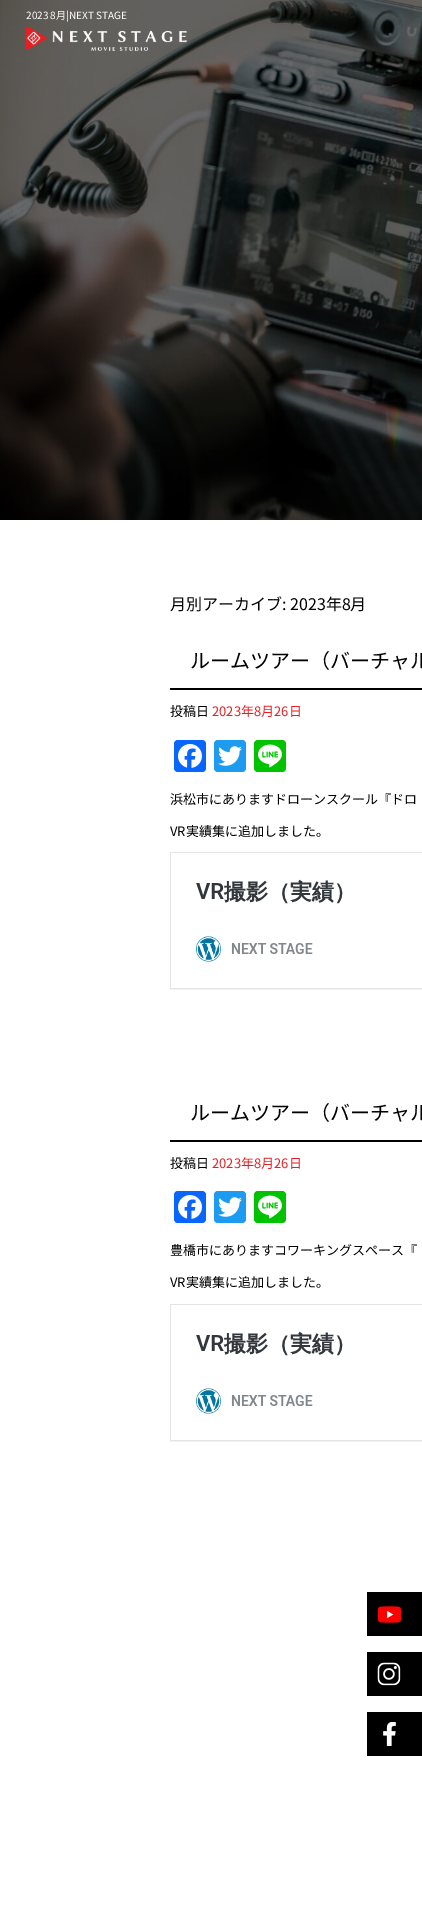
%!PS
<< /PageSize [422 1922] >> setpagedevice
/fl/fill load def
/co { dup -16 bitshift 255 div exch dup -8 bitshift 255 and 255 div exch 255 and 255 div setrgbcolor } def
/fn { [ exch dup neg 0 0 3 -1 roll 0 0 ] selectfont } def
/tx { co fn moveto show } def
/bx { co rectfill } def
/rr { 5 dict begin { /r /h /w /y /x } { exch def } forall
  x r add y moveto x w add y 2 copy h add r arct x w add y h add x 1 index r arct
  x y h add x y r arct x y 2 copy exch w add exch r arct closepath end } def
/im { 5 dict begin { /h /w /y /x /name } { exch def } forall
  gsave x y translate w h scale
  w h 8 [w 0 0 h 0 0] name (r) file false 3 colorimage grestore end } def
0 1922 translate 1 -1 scale
4 setmiterlimit
0 0 422 1922 16#FFFFFF bx
(media/1.raw) 0 0 422 520 im
(media/2.raw) 26 26 161 25 im
170 688 252 2 16#000000 bx
16#0866FF co
174 740 32 32 4 rr fl
(media/3.raw) 178 744 24 24 im
16#1D9BF0 co
214 740 32 32 4 rr fl
(media/4.raw) 218 746 24 20 im
16#00C300 co
254 740 32 32 4 rr fl
(media/5.raw) 258 744 24 24 im
(media/6.raw) 170 852 252 138 im
170 1140 252 2 16#000000 bx
16#0866FF co
174 1191 32 32 4 rr fl
(media/3.raw) 178 1195 24 24 im
16#1D9BF0 co
214 1191 32 32 4 rr fl
(media/4.raw) 218 1197 24 20 im
16#00C300 co
254 1191 32 32 4 rr fl
(media/5.raw) 258 1195 24 24 im
(media/6.raw) 170 1304 252 138 im
(media/7.raw) 367 1592 55 44 im
(media/8.raw) 367 1652 55 44 im
(media/9.raw) 367 1712 55 44 im
(2023 8月|NEXT STAGE) 26 19 /NotoSansJP-Regular 10 16#FFFFFF tx
(月別アーカイブ: 2023年8月) 170 610 /NotoSansJP-Regular 16 16#000000 tx
(ルームツアー（バーチャル) 190 668 /NotoSansJP-Regular 20 16#000000 tx
(投稿日) 170 716 /NotoSansJP-Regular 13 16#000000 tx
(2023年8月26日) 212 716 /NotoSansJP-Regular 13 16#E71E22 tx
(浜松市にありますドローンスクール『ドロ) 170 804 /NotoSansJP-Regular 13 16#000000 tx
(VR実績集に追加しました。) 170 836 /NotoSansJP-Regular 13 16#000000 tx
(ルームツアー（バーチャル) 190 1120 /NotoSansJP-Regular 20 16#000000 tx
(投稿日) 170 1168 /NotoSansJP-Regular 13 16#000000 tx
(2023年8月26日) 212 1168 /NotoSansJP-Regular 13 16#E71E22 tx
(豊橋市にありますコワーキングスペース『) 170 1255 /NotoSansJP-Regular 13 16#000000 tx
(VR実績集に追加しました。) 170 1287 /NotoSansJP-Regular 13 16#000000 tx
showpage
